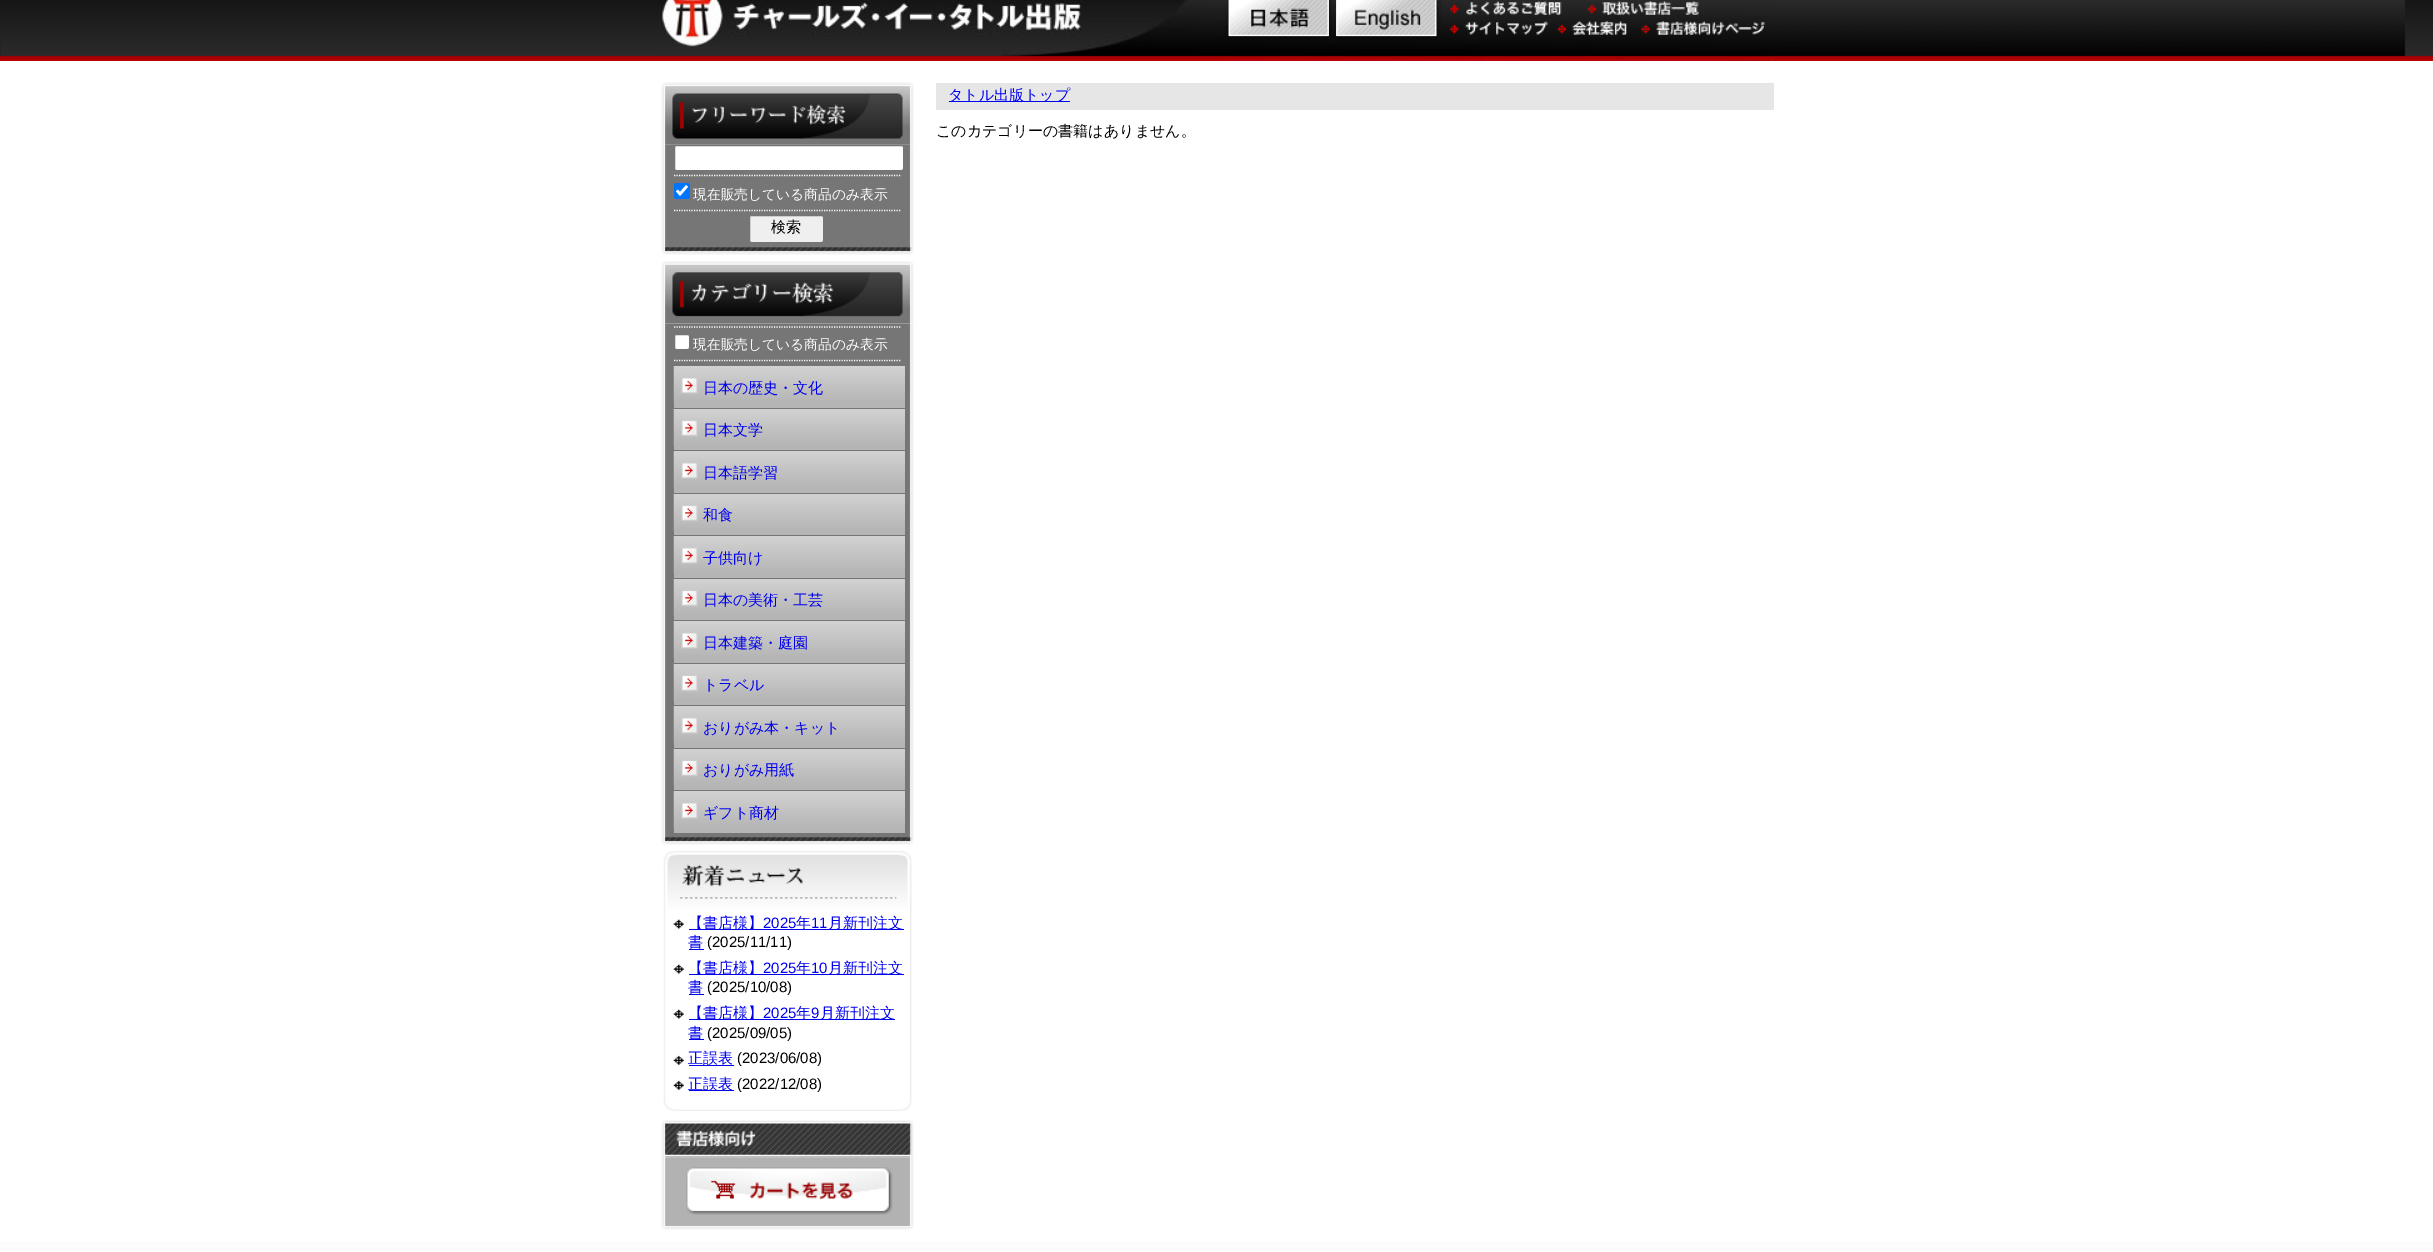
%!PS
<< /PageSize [2433 1252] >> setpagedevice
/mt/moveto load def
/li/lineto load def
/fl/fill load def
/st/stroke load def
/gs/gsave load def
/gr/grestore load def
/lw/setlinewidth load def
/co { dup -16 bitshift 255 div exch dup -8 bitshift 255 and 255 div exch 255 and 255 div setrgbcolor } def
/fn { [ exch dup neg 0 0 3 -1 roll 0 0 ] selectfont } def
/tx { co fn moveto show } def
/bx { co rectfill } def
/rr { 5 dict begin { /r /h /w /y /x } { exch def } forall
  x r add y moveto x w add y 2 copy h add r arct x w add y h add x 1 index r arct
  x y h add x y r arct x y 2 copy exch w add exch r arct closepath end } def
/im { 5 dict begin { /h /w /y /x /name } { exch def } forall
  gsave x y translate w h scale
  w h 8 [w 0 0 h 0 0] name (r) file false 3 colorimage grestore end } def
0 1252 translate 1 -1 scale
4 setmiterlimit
0 0 2433 1252 16#FFFFFF bx
(media/1.raw) 0 0 2433 61 im
(media/2.raw) 661 0 563 57 im
(media/3.raw) 1224 0 550 61 im
(media/4.raw) 1228 0 101 36 im
(media/5.raw) 1336 0 101 36 im
(media/6.raw) 1450 1 112 14 im
(media/7.raw) 1587 1 112 14 im
(media/8.raw) 1450 21 98 14 im
(media/9.raw) 1557 21 70 14 im
(media/10.raw) 1641 21 125 14 im
936 83 838 27 16#E6E6E6 bx
949 101 121 1 16#0000EE bx
(media/12.raw) 661 144 253 111 im
(media/11.raw) 661 82 253 63 im
16#FFFFFF co
674.5 145.5 229 25 2 rr gs fl gr
16#767676 co
st
16#FFFFFF co
1.2 lw
[1.25 1.25] 0 setdash
674 175.5 mt 901 175.5 li st
674 210.5 mt 901 210.5 li st
16#0075FF co
674 183 16 16 2.5 rr fl
16#FFFFFF co
2.6 lw
[] 0 setdash
677 190.5 mt 680 194 li 687 186 li st
16#EFEFEF co
749.5 215.5 74 27 2 rr gs fl gr
16#767676 co
1 lw
st
(media/14.raw) 661 323 253 522 im
(media/13.raw) 661 261 253 63 im
16#FFFFFF co
1.2 lw
[1.25 1.25] 0 setdash
674 327 mt 901 327 li st
674 360.5 mt 901 360.5 li st
674.5 334.5 15 15 2 rr gs fl gr
16#767676 co
1 lw
[] 0 setdash
st
674 403 231 5 16#B5B5B5 bx
(media/15.raw) 673 366 232 38 im
674 446 231 4 16#B5B5B5 bx
(media/16.raw) 673 408 232 38 im
674 408 231 1 16#767676 bx
674 488 231 5 16#B5B5B5 bx
(media/15.raw) 673 451 232 38 im
674 531 231 4 16#B5B5B5 bx
(media/16.raw) 673 493 232 38 im
674 493 231 1 16#767676 bx
674 573 231 5 16#B5B5B5 bx
(media/15.raw) 673 536 232 38 im
674 616 231 4 16#B5B5B5 bx
(media/16.raw) 673 578 232 38 im
674 578 231 1 16#767676 bx
674 658 231 5 16#B5B5B5 bx
(media/15.raw) 673 621 232 38 im
674 701 231 4 16#B5B5B5 bx
(media/16.raw) 673 663 232 38 im
674 663 231 1 16#767676 bx
674 743 231 5 16#B5B5B5 bx
(media/15.raw) 673 706 232 38 im
674 786 231 4 16#B5B5B5 bx
(media/17.raw) 673 748 232 38 im
674 748 231 1 16#767676 bx
674 828 231 5 16#B5B5B5 bx
(media/15.raw) 673 791 232 38 im
(media/18.raw) 663 851 249 60 im
(media/19.raw) 663 911 249 200 im
(media/20.raw) 673 919 11 10 im
689 929 215 1 16#0000EE bx
689 949 15 1 16#0000EE bx
(media/20.raw) 673 964 11 10 im
689 974 215 1 16#0000EE bx
689 994 15 1 16#0000EE bx
(media/20.raw) 673 1009 11 10 im
689 1019 206 1 16#0000EE bx
689 1039 15 1 16#0000EE bx
(media/21.raw) 673 1055 11 10 im
689 1065 45 1 16#0000EE bx
(media/21.raw) 673 1080 11 10 im
689 1090 45 1 16#0000EE bx
(media/23.raw) 661 1157 253 73 im
(media/22.raw) 661 1120 253 38 im
(media/24.raw) 686 1167 207 48 im
(media/25.raw) 690 1171 197 29 im
(media/26.raw) 0 1242 2433 8 im
(タトル出版トップ) 948 100 /WenQuanYiZenHei-Medium 15 16#0000EE tx
(このカテゴリーの書籍はありません。) 936 136 /WenQuanYiZenHei-Medium 15 16#000000 tx
(現在販売している商品のみ表示) 693 199 /WenQuanYiZenHei-Medium 13.75 16#FFFFFF tx
(検索) 771 232 /WenQuanYiZenHei-Medium 15 16#000000 tx
(現在販売している商品のみ表示) 693 349 /WenQuanYiZenHei-Medium 13.75 16#FFFFFF tx
(日本の歴史・文化) 703 393 /WenQuanYiZenHei-Medium 15 16#0000EE tx
(日本文学) 703 435 /WenQuanYiZenHei-Medium 15 16#0000EE tx
(日本語学習) 703 478 /WenQuanYiZenHei-Medium 15 16#0000EE tx
(和食) 703 520 /WenQuanYiZenHei-Medium 15 16#0000EE tx
(子供向け) 703 563 /WenQuanYiZenHei-Medium 15 16#0000EE tx
(日本の美術・工芸) 703 605 /WenQuanYiZenHei-Medium 15 16#0000EE tx
(日本建築・庭園) 703 648 /WenQuanYiZenHei-Medium 15 16#0000EE tx
(トラベル) 703 690 /WenQuanYiZenHei-Medium 15 16#0000EE tx
(おりがみ本・キット) 703 733 /WenQuanYiZenHei-Medium 15 16#0000EE tx
(おりがみ用紙) 703 775 /WenQuanYiZenHei-Medium 15 16#0000EE tx
(ギフト商材) 703 818 /WenQuanYiZenHei-Medium 15 16#0000EE tx
(【書店様】) 688 928 /WenQuanYiZenHei-Medium 15 16#0000EE tx
(2025) 763 928 /LiberationSans-Regular 15 16#0000EE tx
(年) 796 928 /WenQuanYiZenHei-Medium 15 16#0000EE tx
(11) 811 928 /LiberationSans-Regular 15 16#0000EE tx
(月新刊注文) 828 928 /WenQuanYiZenHei-Medium 15 16#0000EE tx
(書) 688 947 /WenQuanYiZenHei-Medium 15 16#0000EE tx
(\(2025/11/11\)) 707 947 /LiberationSans-Regular 15 16#000000 tx
(【書店様】) 688 973 /WenQuanYiZenHei-Medium 15 16#0000EE tx
(2025) 763 973 /LiberationSans-Regular 15 16#0000EE tx
(年) 796 973 /WenQuanYiZenHei-Medium 15 16#0000EE tx
(10) 811 973 /LiberationSans-Regular 15 16#0000EE tx
(月新刊注文) 828 973 /WenQuanYiZenHei-Medium 15 16#0000EE tx
(書) 688 992 /WenQuanYiZenHei-Medium 15 16#0000EE tx
(\(2025/10/08\)) 707 992 /LiberationSans-Regular 15 16#000000 tx
(【書店様】) 688 1018 /WenQuanYiZenHei-Medium 15 16#0000EE tx
(2025) 763 1018 /LiberationSans-Regular 15 16#0000EE tx
(年) 796 1018 /WenQuanYiZenHei-Medium 15 16#0000EE tx
(9) 811 1018 /LiberationSans-Regular 15 16#0000EE tx
(月新刊注文) 820 1018 /WenQuanYiZenHei-Medium 15 16#0000EE tx
(書) 688 1038 /WenQuanYiZenHei-Medium 15 16#0000EE tx
(\(2025/09/05\)) 707 1038 /LiberationSans-Regular 15 16#000000 tx
(正誤表) 688 1063 /WenQuanYiZenHei-Medium 15 16#0000EE tx
(\(2023/06/08\)) 737 1063 /LiberationSans-Regular 15 16#000000 tx
(正誤表) 688 1089 /WenQuanYiZenHei-Medium 15 16#0000EE tx
(\(2022/12/08\)) 737 1089 /LiberationSans-Regular 15 16#000000 tx
showpage
